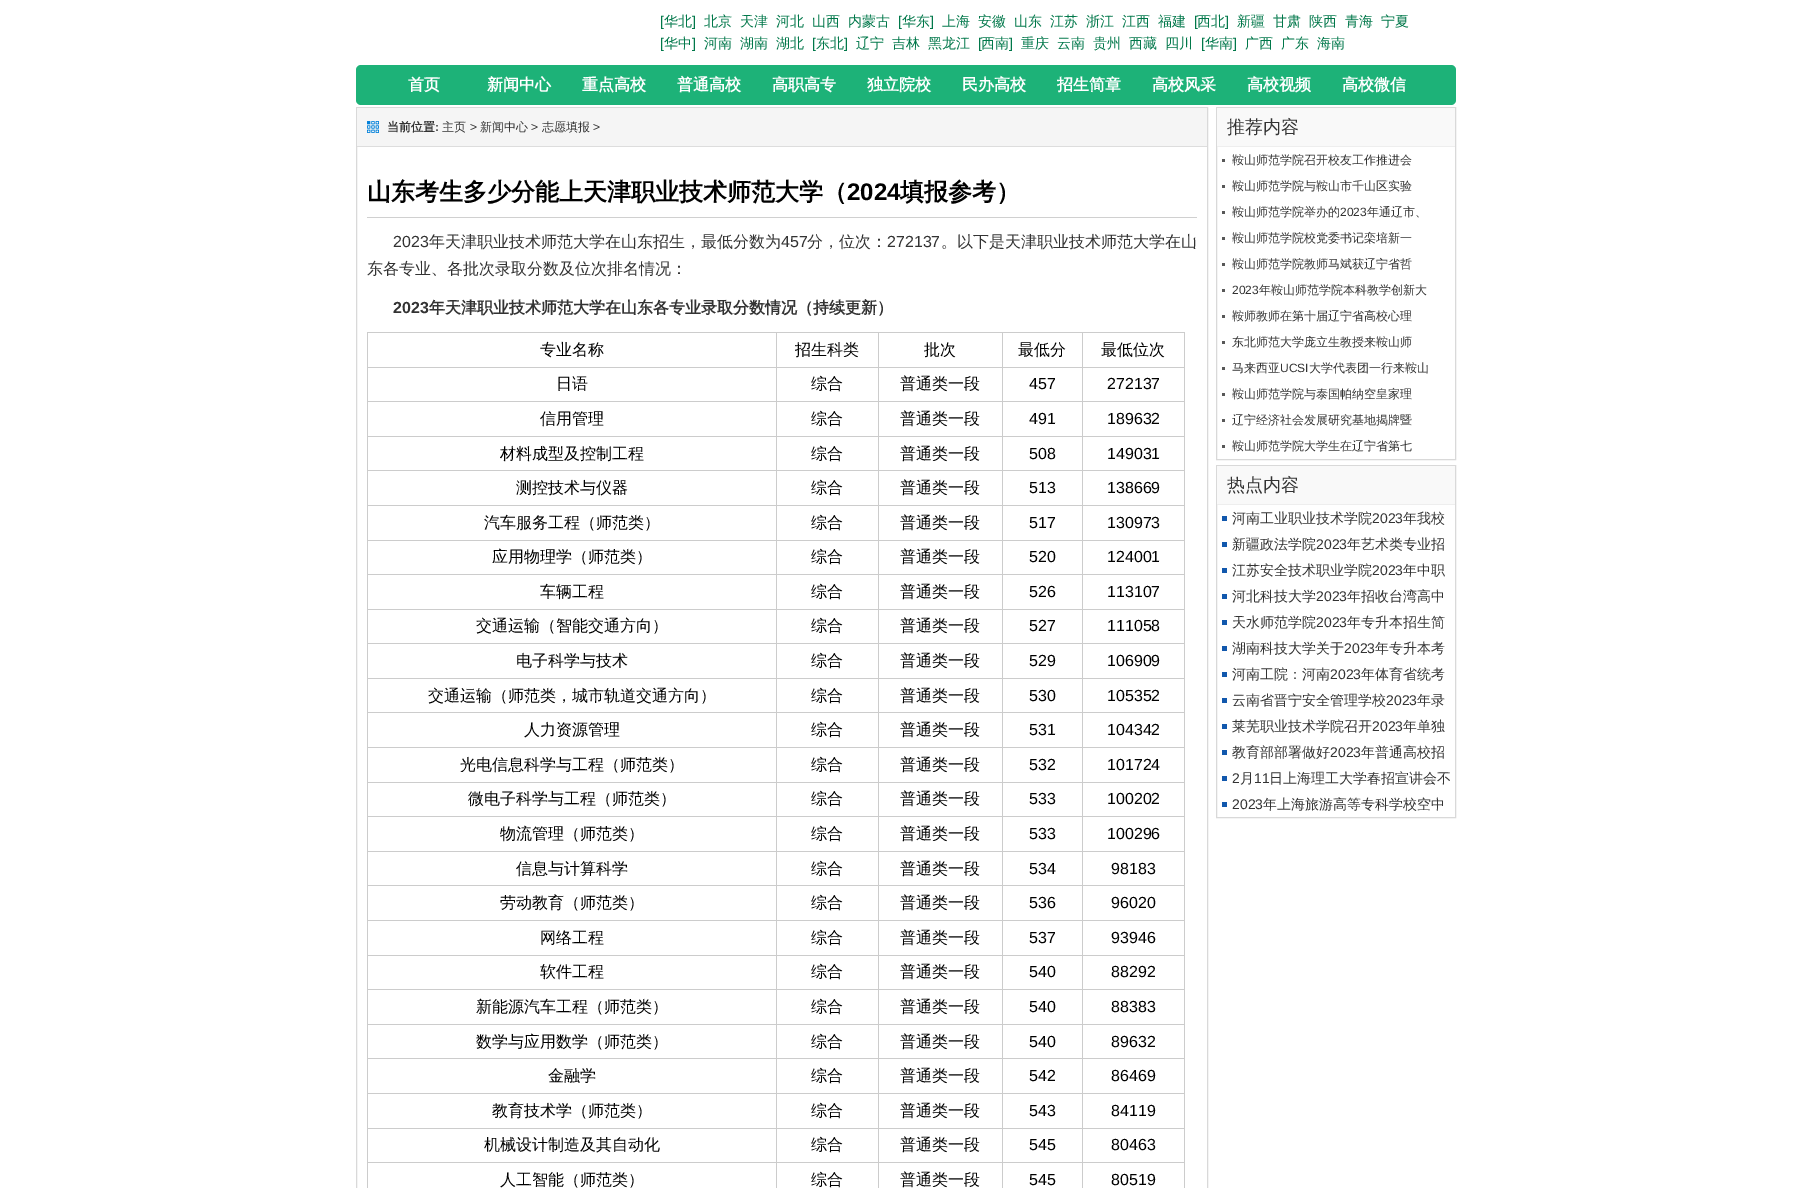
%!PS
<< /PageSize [1812 1188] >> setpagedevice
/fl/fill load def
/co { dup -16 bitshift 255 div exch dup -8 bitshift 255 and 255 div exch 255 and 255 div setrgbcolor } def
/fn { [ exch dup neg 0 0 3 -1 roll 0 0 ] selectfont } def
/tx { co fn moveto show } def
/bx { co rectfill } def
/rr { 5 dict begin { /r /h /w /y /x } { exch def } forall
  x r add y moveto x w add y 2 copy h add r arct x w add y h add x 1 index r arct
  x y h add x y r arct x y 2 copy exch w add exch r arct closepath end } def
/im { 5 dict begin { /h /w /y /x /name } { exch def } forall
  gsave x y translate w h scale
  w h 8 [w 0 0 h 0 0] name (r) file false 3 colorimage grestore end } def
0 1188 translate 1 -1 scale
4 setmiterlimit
0 0 1812 1188 16#FFFFFF bx
16#1DB278 co
356 65 1100 40 5 rr fl
16#D9D9D9 co
356.5 107.5 851 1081 rectstroke
357 108 850 38 16#F5F5F5 bx
(media/1.raw) 367 121 12 12 im
357 146 850 1 16#DDDDDD bx
367 217 830 1 16#D0D0D0 bx
367 332 818 1 16#CCCCCC bx
1184 332 1 856 16#CCCCCC bx
367 332 1 856 16#CCCCCC bx
1082 367 103 1 16#CCCCCC bx
1082 401 103 1 16#CCCCCC bx
1082 436 103 1 16#CCCCCC bx
1082 470 103 1 16#CCCCCC bx
1082 505 103 1 16#CCCCCC bx
1082 540 103 1 16#CCCCCC bx
1082 574 103 1 16#CCCCCC bx
1082 609 103 1 16#CCCCCC bx
1082 643 103 1 16#CCCCCC bx
1082 678 103 1 16#CCCCCC bx
1082 712 103 1 16#CCCCCC bx
1082 747 103 1 16#CCCCCC bx
1082 782 103 1 16#CCCCCC bx
1082 816 103 1 16#CCCCCC bx
1082 851 103 1 16#CCCCCC bx
1082 885 103 1 16#CCCCCC bx
1082 920 103 1 16#CCCCCC bx
1082 955 103 1 16#CCCCCC bx
1082 989 103 1 16#CCCCCC bx
1082 1024 103 1 16#CCCCCC bx
1082 1058 103 1 16#CCCCCC bx
1082 1093 103 1 16#CCCCCC bx
1082 1128 103 1 16#CCCCCC bx
1082 1162 103 1 16#CCCCCC bx
1082 1162 1 26 16#CCCCCC bx
1002 1162 81 1 16#CCCCCC bx
1082 1128 1 35 16#CCCCCC bx
1002 1128 81 1 16#CCCCCC bx
1082 1093 1 36 16#CCCCCC bx
1002 1093 81 1 16#CCCCCC bx
1082 1058 1 36 16#CCCCCC bx
1002 1058 81 1 16#CCCCCC bx
1082 1024 1 35 16#CCCCCC bx
1002 1024 81 1 16#CCCCCC bx
1082 989 1 36 16#CCCCCC bx
1002 989 81 1 16#CCCCCC bx
1082 955 1 35 16#CCCCCC bx
1002 955 81 1 16#CCCCCC bx
1082 920 1 36 16#CCCCCC bx
1002 920 81 1 16#CCCCCC bx
1082 885 1 36 16#CCCCCC bx
1002 885 81 1 16#CCCCCC bx
1082 851 1 35 16#CCCCCC bx
1002 851 81 1 16#CCCCCC bx
1082 816 1 36 16#CCCCCC bx
1002 816 81 1 16#CCCCCC bx
1082 782 1 35 16#CCCCCC bx
1002 782 81 1 16#CCCCCC bx
1082 747 1 36 16#CCCCCC bx
1002 747 81 1 16#CCCCCC bx
1082 712 1 36 16#CCCCCC bx
1002 712 81 1 16#CCCCCC bx
1082 678 1 35 16#CCCCCC bx
1002 678 81 1 16#CCCCCC bx
1082 643 1 36 16#CCCCCC bx
1002 643 81 1 16#CCCCCC bx
1082 609 1 35 16#CCCCCC bx
1002 609 81 1 16#CCCCCC bx
1082 574 1 36 16#CCCCCC bx
1002 574 81 1 16#CCCCCC bx
1082 540 1 35 16#CCCCCC bx
1002 540 81 1 16#CCCCCC bx
1082 505 1 36 16#CCCCCC bx
1002 505 81 1 16#CCCCCC bx
1082 470 1 36 16#CCCCCC bx
1002 470 81 1 16#CCCCCC bx
1082 436 1 35 16#CCCCCC bx
1002 436 81 1 16#CCCCCC bx
1082 401 1 36 16#CCCCCC bx
1002 401 81 1 16#CCCCCC bx
1082 367 1 35 16#CCCCCC bx
1002 367 81 1 16#CCCCCC bx
1002 1162 1 26 16#CCCCCC bx
878 1162 125 1 16#CCCCCC bx
1002 1128 1 35 16#CCCCCC bx
878 1128 125 1 16#CCCCCC bx
1002 1093 1 36 16#CCCCCC bx
878 1093 125 1 16#CCCCCC bx
1002 1058 1 36 16#CCCCCC bx
878 1058 125 1 16#CCCCCC bx
1002 1024 1 35 16#CCCCCC bx
878 1024 125 1 16#CCCCCC bx
1002 989 1 36 16#CCCCCC bx
878 989 125 1 16#CCCCCC bx
1002 955 1 35 16#CCCCCC bx
878 955 125 1 16#CCCCCC bx
1002 920 1 36 16#CCCCCC bx
878 920 125 1 16#CCCCCC bx
1002 885 1 36 16#CCCCCC bx
878 885 125 1 16#CCCCCC bx
1002 851 1 35 16#CCCCCC bx
878 851 125 1 16#CCCCCC bx
1002 816 1 36 16#CCCCCC bx
878 816 125 1 16#CCCCCC bx
1002 782 1 35 16#CCCCCC bx
878 782 125 1 16#CCCCCC bx
1002 747 1 36 16#CCCCCC bx
878 747 125 1 16#CCCCCC bx
1002 712 1 36 16#CCCCCC bx
878 712 125 1 16#CCCCCC bx
1002 678 1 35 16#CCCCCC bx
878 678 125 1 16#CCCCCC bx
1002 643 1 36 16#CCCCCC bx
878 643 125 1 16#CCCCCC bx
1002 609 1 35 16#CCCCCC bx
878 609 125 1 16#CCCCCC bx
1002 574 1 36 16#CCCCCC bx
878 574 125 1 16#CCCCCC bx
1002 540 1 35 16#CCCCCC bx
878 540 125 1 16#CCCCCC bx
1002 505 1 36 16#CCCCCC bx
878 505 125 1 16#CCCCCC bx
1002 470 1 36 16#CCCCCC bx
878 470 125 1 16#CCCCCC bx
1002 436 1 35 16#CCCCCC bx
878 436 125 1 16#CCCCCC bx
1002 401 1 36 16#CCCCCC bx
878 401 125 1 16#CCCCCC bx
1002 367 1 35 16#CCCCCC bx
878 367 125 1 16#CCCCCC bx
878 1162 1 26 16#CCCCCC bx
776 1162 103 1 16#CCCCCC bx
878 1128 1 35 16#CCCCCC bx
776 1128 103 1 16#CCCCCC bx
878 1093 1 36 16#CCCCCC bx
776 1093 103 1 16#CCCCCC bx
878 1058 1 36 16#CCCCCC bx
776 1058 103 1 16#CCCCCC bx
878 1024 1 35 16#CCCCCC bx
776 1024 103 1 16#CCCCCC bx
878 989 1 36 16#CCCCCC bx
776 989 103 1 16#CCCCCC bx
878 955 1 35 16#CCCCCC bx
776 955 103 1 16#CCCCCC bx
878 920 1 36 16#CCCCCC bx
776 920 103 1 16#CCCCCC bx
878 885 1 36 16#CCCCCC bx
776 885 103 1 16#CCCCCC bx
878 851 1 35 16#CCCCCC bx
776 851 103 1 16#CCCCCC bx
878 816 1 36 16#CCCCCC bx
776 816 103 1 16#CCCCCC bx
878 782 1 35 16#CCCCCC bx
776 782 103 1 16#CCCCCC bx
878 747 1 36 16#CCCCCC bx
776 747 103 1 16#CCCCCC bx
878 712 1 36 16#CCCCCC bx
776 712 103 1 16#CCCCCC bx
878 678 1 35 16#CCCCCC bx
776 678 103 1 16#CCCCCC bx
878 643 1 36 16#CCCCCC bx
776 643 103 1 16#CCCCCC bx
878 609 1 35 16#CCCCCC bx
776 609 103 1 16#CCCCCC bx
878 574 1 36 16#CCCCCC bx
776 574 103 1 16#CCCCCC bx
878 540 1 35 16#CCCCCC bx
776 540 103 1 16#CCCCCC bx
878 505 1 36 16#CCCCCC bx
776 505 103 1 16#CCCCCC bx
878 470 1 36 16#CCCCCC bx
776 470 103 1 16#CCCCCC bx
878 436 1 35 16#CCCCCC bx
776 436 103 1 16#CCCCCC bx
878 401 1 36 16#CCCCCC bx
776 401 103 1 16#CCCCCC bx
878 367 1 35 16#CCCCCC bx
776 367 103 1 16#CCCCCC bx
776 1162 1 26 16#CCCCCC bx
367 1162 410 1 16#CCCCCC bx
776 1128 1 35 16#CCCCCC bx
367 1128 410 1 16#CCCCCC bx
776 1093 1 36 16#CCCCCC bx
367 1093 410 1 16#CCCCCC bx
776 1058 1 36 16#CCCCCC bx
367 1058 410 1 16#CCCCCC bx
776 1024 1 35 16#CCCCCC bx
367 1024 410 1 16#CCCCCC bx
776 989 1 36 16#CCCCCC bx
367 989 410 1 16#CCCCCC bx
776 955 1 35 16#CCCCCC bx
367 955 410 1 16#CCCCCC bx
776 920 1 36 16#CCCCCC bx
367 920 410 1 16#CCCCCC bx
776 885 1 36 16#CCCCCC bx
367 885 410 1 16#CCCCCC bx
776 851 1 35 16#CCCCCC bx
367 851 410 1 16#CCCCCC bx
776 816 1 36 16#CCCCCC bx
367 816 410 1 16#CCCCCC bx
776 782 1 35 16#CCCCCC bx
367 782 410 1 16#CCCCCC bx
776 747 1 36 16#CCCCCC bx
367 747 410 1 16#CCCCCC bx
776 712 1 36 16#CCCCCC bx
367 712 410 1 16#CCCCCC bx
776 678 1 35 16#CCCCCC bx
367 678 410 1 16#CCCCCC bx
776 643 1 36 16#CCCCCC bx
367 643 410 1 16#CCCCCC bx
776 609 1 35 16#CCCCCC bx
367 609 410 1 16#CCCCCC bx
776 574 1 36 16#CCCCCC bx
367 574 410 1 16#CCCCCC bx
776 540 1 35 16#CCCCCC bx
367 540 410 1 16#CCCCCC bx
776 505 1 36 16#CCCCCC bx
367 505 410 1 16#CCCCCC bx
776 470 1 36 16#CCCCCC bx
367 470 410 1 16#CCCCCC bx
776 436 1 35 16#CCCCCC bx
367 436 410 1 16#CCCCCC bx
776 401 1 36 16#CCCCCC bx
367 401 410 1 16#CCCCCC bx
776 367 1 35 16#CCCCCC bx
367 367 410 1 16#CCCCCC bx
776 332 1 36 16#CCCCCC bx
878 332 1 36 16#CCCCCC bx
1002 332 1 36 16#CCCCCC bx
1082 332 1 36 16#CCCCCC bx
16#D9D9D9 co
1216.5 107.5 239 352 rectstroke
1217 108 238 38 16#F9F9F9 bx
1217 146 238 1 16#EEEEEE bx
1222 159 3 3 16#585858 bx
1222 185 3 3 16#585858 bx
1222 211 3 3 16#585858 bx
1222 237 3 3 16#585858 bx
1222 263 3 3 16#585858 bx
1222 289 3 3 16#585858 bx
1222 315 3 3 16#585858 bx
1222 341 3 3 16#585858 bx
1222 367 3 3 16#585858 bx
1222 393 3 3 16#585858 bx
1222 419 3 3 16#585858 bx
1222 445 3 3 16#585858 bx
16#D9D9D9 co
1216.5 465.5 239 352 rectstroke
1217 466 238 38 16#F9F9F9 bx
1217 504 238 1 16#EEEEEE bx
1222 516 5 5 16#1258AD bx
1222 542 5 5 16#1258AD bx
1222 568 5 5 16#1258AD bx
1222 594 5 5 16#1258AD bx
1222 620 5 5 16#1258AD bx
1222 646 5 5 16#1258AD bx
1222 672 5 5 16#1258AD bx
1222 698 5 5 16#1258AD bx
1222 724 5 5 16#1258AD bx
1222 750 5 5 16#1258AD bx
1222 776 5 5 16#1258AD bx
1222 802 5 5 16#1258AD bx
([) 660 26 /LiberationSans-Regular 14 16#01784A tx
(华北) 664 26 /WenQuanYiZenHei-Medium 14 16#01784A tx
(]) 692 26 /LiberationSans-Regular 14 16#01784A tx
(北京) 704 26 /WenQuanYiZenHei-Medium 14 16#01784A tx
(天津) 740 26 /WenQuanYiZenHei-Medium 14 16#01784A tx
(河北) 776 26 /WenQuanYiZenHei-Medium 14 16#01784A tx
(山西) 812 26 /WenQuanYiZenHei-Medium 14 16#01784A tx
(内蒙古) 848 26 /WenQuanYiZenHei-Medium 14 16#01784A tx
([) 898 26 /LiberationSans-Regular 14 16#01784A tx
(华东) 902 26 /WenQuanYiZenHei-Medium 14 16#01784A tx
(]) 930 26 /LiberationSans-Regular 14 16#01784A tx
(上海) 942 26 /WenQuanYiZenHei-Medium 14 16#01784A tx
(安徽) 978 26 /WenQuanYiZenHei-Medium 14 16#01784A tx
(山东) 1014 26 /WenQuanYiZenHei-Medium 14 16#01784A tx
(江苏) 1050 26 /WenQuanYiZenHei-Medium 14 16#01784A tx
(浙江) 1086 26 /WenQuanYiZenHei-Medium 14 16#01784A tx
(江西) 1122 26 /WenQuanYiZenHei-Medium 14 16#01784A tx
(福建) 1158 26 /WenQuanYiZenHei-Medium 14 16#01784A tx
([) 1194 26 /LiberationSans-Regular 14 16#01784A tx
(西北) 1197 26 /WenQuanYiZenHei-Medium 14 16#01784A tx
(]) 1225 26 /LiberationSans-Regular 14 16#01784A tx
(新疆) 1237 26 /WenQuanYiZenHei-Medium 14 16#01784A tx
(甘肃) 1273 26 /WenQuanYiZenHei-Medium 14 16#01784A tx
(陕西) 1309 26 /WenQuanYiZenHei-Medium 14 16#01784A tx
(青海) 1345 26 /WenQuanYiZenHei-Medium 14 16#01784A tx
(宁夏) 1381 26 /WenQuanYiZenHei-Medium 14 16#01784A tx
([) 660 48 /LiberationSans-Regular 14 16#01784A tx
(华中) 664 48 /WenQuanYiZenHei-Medium 14 16#01784A tx
(]) 692 48 /LiberationSans-Regular 14 16#01784A tx
(河南) 704 48 /WenQuanYiZenHei-Medium 14 16#01784A tx
(湖南) 740 48 /WenQuanYiZenHei-Medium 14 16#01784A tx
(湖北) 776 48 /WenQuanYiZenHei-Medium 14 16#01784A tx
([) 812 48 /LiberationSans-Regular 14 16#01784A tx
(东北) 816 48 /WenQuanYiZenHei-Medium 14 16#01784A tx
(]) 844 48 /LiberationSans-Regular 14 16#01784A tx
(辽宁) 856 48 /WenQuanYiZenHei-Medium 14 16#01784A tx
(吉林) 892 48 /WenQuanYiZenHei-Medium 14 16#01784A tx
(黑龙江) 928 48 /WenQuanYiZenHei-Medium 14 16#01784A tx
([) 978 48 /LiberationSans-Regular 14 16#01784A tx
(西南) 981 48 /WenQuanYiZenHei-Medium 14 16#01784A tx
(]) 1009 48 /LiberationSans-Regular 14 16#01784A tx
(重庆) 1021 48 /WenQuanYiZenHei-Medium 14 16#01784A tx
(云南) 1057 48 /WenQuanYiZenHei-Medium 14 16#01784A tx
(贵州) 1093 48 /WenQuanYiZenHei-Medium 14 16#01784A tx
(西藏) 1129 48 /WenQuanYiZenHei-Medium 14 16#01784A tx
(四川) 1165 48 /WenQuanYiZenHei-Medium 14 16#01784A tx
([) 1201 48 /LiberationSans-Regular 14 16#01784A tx
(华南) 1205 48 /WenQuanYiZenHei-Medium 14 16#01784A tx
(]) 1233 48 /LiberationSans-Regular 14 16#01784A tx
(广西) 1245 48 /WenQuanYiZenHei-Medium 14 16#01784A tx
(广东) 1281 48 /WenQuanYiZenHei-Medium 14 16#01784A tx
(海南) 1317 48 /WenQuanYiZenHei-Medium 14 16#01784A tx
(首页) 408 90 /WenQuanYiZenHei-Bold 16 16#FFFFFF tx
(新闻中心) 487 90 /WenQuanYiZenHei-Bold 16 16#FFFFFF tx
(重点高校) 582 90 /WenQuanYiZenHei-Bold 16 16#FFFFFF tx
(普通高校) 677 90 /WenQuanYiZenHei-Bold 16 16#FFFFFF tx
(高职高专) 772 90 /WenQuanYiZenHei-Bold 16 16#FFFFFF tx
(独立院校) 867 90 /WenQuanYiZenHei-Bold 16 16#FFFFFF tx
(民办高校) 962 90 /WenQuanYiZenHei-Bold 16 16#FFFFFF tx
(招生简章) 1057 90 /WenQuanYiZenHei-Bold 16 16#FFFFFF tx
(高校风采) 1152 90 /WenQuanYiZenHei-Bold 16 16#FFFFFF tx
(高校视频) 1247 90 /WenQuanYiZenHei-Bold 16 16#FFFFFF tx
(高校微信) 1342 90 /WenQuanYiZenHei-Bold 16 16#FFFFFF tx
(当前位置) 387 131 /WenQuanYiZenHei-Bold 12 16#333333 tx
(:) 435 131 /LiberationSans-Bold 12 16#333333 tx
(主页) 442 131 /WenQuanYiZenHei-Medium 12 16#333333 tx
(>) 470 131 /LiberationSans-Regular 12 16#333333 tx
(新闻中心) 480 131 /WenQuanYiZenHei-Medium 12 16#333333 tx
(>) 531 131 /LiberationSans-Regular 12 16#333333 tx
(志愿填报) 542 131 /WenQuanYiZenHei-Medium 12 16#333333 tx
(>) 593 131 /LiberationSans-Regular 12 16#333333 tx
(山东考生多少分能上天津职业技术师范大学（) 367 200 /WenQuanYiZenHei-Bold 24 16#000000 tx
(2024) 847 200 /LiberationSans-Bold 24 16#000000 tx
(填报参考）) 900 200 /WenQuanYiZenHei-Bold 24 16#000000 tx
(2023) 393 247 /LiberationSans-Regular 16 16#333333 tx
(年天津职业技术师范大学在山东招生，最低分数为) 429 247 /WenQuanYiZenHei-Medium 16 16#333333 tx
(457) 781 247 /LiberationSans-Regular 16 16#333333 tx
(分，位次：) 807 247 /WenQuanYiZenHei-Medium 16 16#333333 tx
(272137) 887 247 /LiberationSans-Regular 16 16#333333 tx
(。以下是天津职业技术师范大学在山) 941 247 /WenQuanYiZenHei-Medium 16 16#333333 tx
(东各专业、各批次录取分数及位次排名情况：) 367 274 /WenQuanYiZenHei-Medium 16 16#333333 tx
(2023) 393 313 /LiberationSans-Bold 16 16#333333 tx
(年天津职业技术师范大学在山东各专业录取分数情况（持续更新）) 429 313 /WenQuanYiZenHei-Bold 16 16#333333 tx
(专业名称) 540 355 /WenQuanYiZenHei-Medium 16 16#000000 tx
(招生科类) 795 355 /WenQuanYiZenHei-Medium 16 16#000000 tx
(批次) 924 355 /WenQuanYiZenHei-Medium 16 16#000000 tx
(最低分) 1018 355 /WenQuanYiZenHei-Medium 16 16#000000 tx
(最低位次) 1101 355 /WenQuanYiZenHei-Medium 16 16#000000 tx
(日语) 556 389 /WenQuanYiZenHei-Medium 16 16#000000 tx
(综合) 811 389 /WenQuanYiZenHei-Medium 16 16#000000 tx
(普通类一段) 900 389 /WenQuanYiZenHei-Medium 16 16#000000 tx
(457) 1029 389 /LiberationSans-Regular 16 16#000000 tx
(272137) 1107 389 /LiberationSans-Regular 16 16#000000 tx
(信用管理) 540 424 /WenQuanYiZenHei-Medium 16 16#000000 tx
(综合) 811 424 /WenQuanYiZenHei-Medium 16 16#000000 tx
(普通类一段) 900 424 /WenQuanYiZenHei-Medium 16 16#000000 tx
(491) 1029 424 /LiberationSans-Regular 16 16#000000 tx
(189632) 1107 424 /LiberationSans-Regular 16 16#000000 tx
(材料成型及控制工程) 500 459 /WenQuanYiZenHei-Medium 16 16#000000 tx
(综合) 811 459 /WenQuanYiZenHei-Medium 16 16#000000 tx
(普通类一段) 900 459 /WenQuanYiZenHei-Medium 16 16#000000 tx
(508) 1029 459 /LiberationSans-Regular 16 16#000000 tx
(149031) 1107 459 /LiberationSans-Regular 16 16#000000 tx
(测控技术与仪器) 516 493 /WenQuanYiZenHei-Medium 16 16#000000 tx
(综合) 811 493 /WenQuanYiZenHei-Medium 16 16#000000 tx
(普通类一段) 900 493 /WenQuanYiZenHei-Medium 16 16#000000 tx
(513) 1029 493 /LiberationSans-Regular 16 16#000000 tx
(138669) 1107 493 /LiberationSans-Regular 16 16#000000 tx
(汽车服务工程（师范类）) 484 528 /WenQuanYiZenHei-Medium 16 16#000000 tx
(综合) 811 528 /WenQuanYiZenHei-Medium 16 16#000000 tx
(普通类一段) 900 528 /WenQuanYiZenHei-Medium 16 16#000000 tx
(517) 1029 528 /LiberationSans-Regular 16 16#000000 tx
(130973) 1107 528 /LiberationSans-Regular 16 16#000000 tx
(应用物理学（师范类）) 492 562 /WenQuanYiZenHei-Medium 16 16#000000 tx
(综合) 811 562 /WenQuanYiZenHei-Medium 16 16#000000 tx
(普通类一段) 900 562 /WenQuanYiZenHei-Medium 16 16#000000 tx
(520) 1029 562 /LiberationSans-Regular 16 16#000000 tx
(124001) 1107 562 /LiberationSans-Regular 16 16#000000 tx
(车辆工程) 540 597 /WenQuanYiZenHei-Medium 16 16#000000 tx
(综合) 811 597 /WenQuanYiZenHei-Medium 16 16#000000 tx
(普通类一段) 900 597 /WenQuanYiZenHei-Medium 16 16#000000 tx
(526) 1029 597 /LiberationSans-Regular 16 16#000000 tx
(113107) 1107 597 /LiberationSans-Regular 16 16#000000 tx
(交通运输（智能交通方向）) 476 631 /WenQuanYiZenHei-Medium 16 16#000000 tx
(综合) 811 631 /WenQuanYiZenHei-Medium 16 16#000000 tx
(普通类一段) 900 631 /WenQuanYiZenHei-Medium 16 16#000000 tx
(527) 1029 631 /LiberationSans-Regular 16 16#000000 tx
(111058) 1107 631 /LiberationSans-Regular 16 16#000000 tx
(电子科学与技术) 516 666 /WenQuanYiZenHei-Medium 16 16#000000 tx
(综合) 811 666 /WenQuanYiZenHei-Medium 16 16#000000 tx
(普通类一段) 900 666 /WenQuanYiZenHei-Medium 16 16#000000 tx
(529) 1029 666 /LiberationSans-Regular 16 16#000000 tx
(106909) 1107 666 /LiberationSans-Regular 16 16#000000 tx
(交通运输（师范类，城市轨道交通方向）) 428 701 /WenQuanYiZenHei-Medium 16 16#000000 tx
(综合) 811 701 /WenQuanYiZenHei-Medium 16 16#000000 tx
(普通类一段) 900 701 /WenQuanYiZenHei-Medium 16 16#000000 tx
(530) 1029 701 /LiberationSans-Regular 16 16#000000 tx
(105352) 1107 701 /LiberationSans-Regular 16 16#000000 tx
(人力资源管理) 524 735 /WenQuanYiZenHei-Medium 16 16#000000 tx
(综合) 811 735 /WenQuanYiZenHei-Medium 16 16#000000 tx
(普通类一段) 900 735 /WenQuanYiZenHei-Medium 16 16#000000 tx
(531) 1029 735 /LiberationSans-Regular 16 16#000000 tx
(104342) 1107 735 /LiberationSans-Regular 16 16#000000 tx
(光电信息科学与工程（师范类）) 460 770 /WenQuanYiZenHei-Medium 16 16#000000 tx
(综合) 811 770 /WenQuanYiZenHei-Medium 16 16#000000 tx
(普通类一段) 900 770 /WenQuanYiZenHei-Medium 16 16#000000 tx
(532) 1029 770 /LiberationSans-Regular 16 16#000000 tx
(101724) 1107 770 /LiberationSans-Regular 16 16#000000 tx
(微电子科学与工程（师范类）) 468 804 /WenQuanYiZenHei-Medium 16 16#000000 tx
(综合) 811 804 /WenQuanYiZenHei-Medium 16 16#000000 tx
(普通类一段) 900 804 /WenQuanYiZenHei-Medium 16 16#000000 tx
(533) 1029 804 /LiberationSans-Regular 16 16#000000 tx
(100202) 1107 804 /LiberationSans-Regular 16 16#000000 tx
(物流管理（师范类）) 500 839 /WenQuanYiZenHei-Medium 16 16#000000 tx
(综合) 811 839 /WenQuanYiZenHei-Medium 16 16#000000 tx
(普通类一段) 900 839 /WenQuanYiZenHei-Medium 16 16#000000 tx
(533) 1029 839 /LiberationSans-Regular 16 16#000000 tx
(100296) 1107 839 /LiberationSans-Regular 16 16#000000 tx
(信息与计算科学) 516 874 /WenQuanYiZenHei-Medium 16 16#000000 tx
(综合) 811 874 /WenQuanYiZenHei-Medium 16 16#000000 tx
(普通类一段) 900 874 /WenQuanYiZenHei-Medium 16 16#000000 tx
(534) 1029 874 /LiberationSans-Regular 16 16#000000 tx
(98183) 1111 874 /LiberationSans-Regular 16 16#000000 tx
(劳动教育（师范类）) 500 908 /WenQuanYiZenHei-Medium 16 16#000000 tx
(综合) 811 908 /WenQuanYiZenHei-Medium 16 16#000000 tx
(普通类一段) 900 908 /WenQuanYiZenHei-Medium 16 16#000000 tx
(536) 1029 908 /LiberationSans-Regular 16 16#000000 tx
(96020) 1111 908 /LiberationSans-Regular 16 16#000000 tx
(网络工程) 540 943 /WenQuanYiZenHei-Medium 16 16#000000 tx
(综合) 811 943 /WenQuanYiZenHei-Medium 16 16#000000 tx
(普通类一段) 900 943 /WenQuanYiZenHei-Medium 16 16#000000 tx
(537) 1029 943 /LiberationSans-Regular 16 16#000000 tx
(93946) 1111 943 /LiberationSans-Regular 16 16#000000 tx
(软件工程) 540 977 /WenQuanYiZenHei-Medium 16 16#000000 tx
(综合) 811 977 /WenQuanYiZenHei-Medium 16 16#000000 tx
(普通类一段) 900 977 /WenQuanYiZenHei-Medium 16 16#000000 tx
(540) 1029 977 /LiberationSans-Regular 16 16#000000 tx
(88292) 1111 977 /LiberationSans-Regular 16 16#000000 tx
(新能源汽车工程（师范类）) 476 1012 /WenQuanYiZenHei-Medium 16 16#000000 tx
(综合) 811 1012 /WenQuanYiZenHei-Medium 16 16#000000 tx
(普通类一段) 900 1012 /WenQuanYiZenHei-Medium 16 16#000000 tx
(540) 1029 1012 /LiberationSans-Regular 16 16#000000 tx
(88383) 1111 1012 /LiberationSans-Regular 16 16#000000 tx
(数学与应用数学（师范类）) 476 1047 /WenQuanYiZenHei-Medium 16 16#000000 tx
(综合) 811 1047 /WenQuanYiZenHei-Medium 16 16#000000 tx
(普通类一段) 900 1047 /WenQuanYiZenHei-Medium 16 16#000000 tx
(540) 1029 1047 /LiberationSans-Regular 16 16#000000 tx
(89632) 1111 1047 /LiberationSans-Regular 16 16#000000 tx
(金融学) 548 1081 /WenQuanYiZenHei-Medium 16 16#000000 tx
(综合) 811 1081 /WenQuanYiZenHei-Medium 16 16#000000 tx
(普通类一段) 900 1081 /WenQuanYiZenHei-Medium 16 16#000000 tx
(542) 1029 1081 /LiberationSans-Regular 16 16#000000 tx
(86469) 1111 1081 /LiberationSans-Regular 16 16#000000 tx
(教育技术学（师范类）) 492 1116 /WenQuanYiZenHei-Medium 16 16#000000 tx
(综合) 811 1116 /WenQuanYiZenHei-Medium 16 16#000000 tx
(普通类一段) 900 1116 /WenQuanYiZenHei-Medium 16 16#000000 tx
(543) 1029 1116 /LiberationSans-Regular 16 16#000000 tx
(84119) 1111 1116 /LiberationSans-Regular 16 16#000000 tx
(机械设计制造及其自动化) 484 1150 /WenQuanYiZenHei-Medium 16 16#000000 tx
(综合) 811 1150 /WenQuanYiZenHei-Medium 16 16#000000 tx
(普通类一段) 900 1150 /WenQuanYiZenHei-Medium 16 16#000000 tx
(545) 1029 1150 /LiberationSans-Regular 16 16#000000 tx
(80463) 1111 1150 /LiberationSans-Regular 16 16#000000 tx
(人工智能（师范类）) 500 1185 /WenQuanYiZenHei-Medium 16 16#000000 tx
(综合) 811 1185 /WenQuanYiZenHei-Medium 16 16#000000 tx
(普通类一段) 900 1185 /WenQuanYiZenHei-Medium 16 16#000000 tx
(545) 1029 1185 /LiberationSans-Regular 16 16#000000 tx
(80519) 1111 1185 /LiberationSans-Regular 16 16#000000 tx
(推荐内容) 1227 133 /WenQuanYiZenHei-Medium 18 16#333333 tx
(鞍山师范学院召开校友工作推进会) 1232 164 /WenQuanYiZenHei-Medium 12 16#333333 tx
(鞍山师范学院与鞍山市千山区实验) 1232 190 /WenQuanYiZenHei-Medium 12 16#333333 tx
(鞍山师范学院举办的) 1232 216 /WenQuanYiZenHei-Medium 12 16#333333 tx
(2023) 1340 216 /LiberationSans-Regular 12 16#333333 tx
(年通辽市、) 1367 216 /WenQuanYiZenHei-Medium 12 16#333333 tx
(鞍山师范学院校党委书记栾培新一) 1232 242 /WenQuanYiZenHei-Medium 12 16#333333 tx
(鞍山师范学院教师马斌获辽宁省哲) 1232 268 /WenQuanYiZenHei-Medium 12 16#333333 tx
(2023) 1232 294 /LiberationSans-Regular 12 16#333333 tx
(年鞍山师范学院本科教学创新大) 1259 294 /WenQuanYiZenHei-Medium 12 16#333333 tx
(鞍师教师在第十届辽宁省高校心理) 1232 320 /WenQuanYiZenHei-Medium 12 16#333333 tx
(东北师范大学庞立生教授来鞍山师) 1232 346 /WenQuanYiZenHei-Medium 12 16#333333 tx
(马来西亚) 1232 372 /WenQuanYiZenHei-Medium 12 16#333333 tx
(UCSI) 1280 372 /LiberationSans-Regular 12 16#333333 tx
(大学代表团一行来鞍山) 1309 372 /WenQuanYiZenHei-Medium 12 16#333333 tx
(鞍山师范学院与泰国帕纳空皇家理) 1232 398 /WenQuanYiZenHei-Medium 12 16#333333 tx
(辽宁经济社会发展研究基地揭牌暨) 1232 424 /WenQuanYiZenHei-Medium 12 16#333333 tx
(鞍山师范学院大学生在辽宁省第七) 1232 450 /WenQuanYiZenHei-Medium 12 16#333333 tx
(热点内容) 1227 491 /WenQuanYiZenHei-Medium 18 16#333333 tx
(河南工业职业技术学院) 1232 523 /WenQuanYiZenHei-Medium 14 16#333333 tx
(2023) 1372 523 /LiberationSans-Regular 14 16#333333 tx
(年我校) 1403 523 /WenQuanYiZenHei-Medium 14 16#333333 tx
(新疆政法学院) 1232 549 /WenQuanYiZenHei-Medium 14 16#333333 tx
(2023) 1316 549 /LiberationSans-Regular 14 16#333333 tx
(年艺术类专业招) 1347 549 /WenQuanYiZenHei-Medium 14 16#333333 tx
(江苏安全技术职业学院) 1232 575 /WenQuanYiZenHei-Medium 14 16#333333 tx
(2023) 1372 575 /LiberationSans-Regular 14 16#333333 tx
(年中职) 1403 575 /WenQuanYiZenHei-Medium 14 16#333333 tx
(河北科技大学) 1232 601 /WenQuanYiZenHei-Medium 14 16#333333 tx
(2023) 1316 601 /LiberationSans-Regular 14 16#333333 tx
(年招收台湾高中) 1347 601 /WenQuanYiZenHei-Medium 14 16#333333 tx
(天水师范学院) 1232 627 /WenQuanYiZenHei-Medium 14 16#333333 tx
(2023) 1316 627 /LiberationSans-Regular 14 16#333333 tx
(年专升本招生简) 1347 627 /WenQuanYiZenHei-Medium 14 16#333333 tx
(湖南科技大学关于) 1232 653 /WenQuanYiZenHei-Medium 14 16#333333 tx
(2023) 1344 653 /LiberationSans-Regular 14 16#333333 tx
(年专升本考) 1375 653 /WenQuanYiZenHei-Medium 14 16#333333 tx
(河南工院：河南) 1232 679 /WenQuanYiZenHei-Medium 14 16#333333 tx
(2023) 1330 679 /LiberationSans-Regular 14 16#333333 tx
(年体育省统考) 1361 679 /WenQuanYiZenHei-Medium 14 16#333333 tx
(云南省晋宁安全管理学校) 1232 705 /WenQuanYiZenHei-Medium 14 16#333333 tx
(2023) 1386 705 /LiberationSans-Regular 14 16#333333 tx
(年录) 1417 705 /WenQuanYiZenHei-Medium 14 16#333333 tx
(莱芜职业技术学院召开) 1232 731 /WenQuanYiZenHei-Medium 14 16#333333 tx
(2023) 1372 731 /LiberationSans-Regular 14 16#333333 tx
(年单独) 1403 731 /WenQuanYiZenHei-Medium 14 16#333333 tx
(教育部部署做好) 1232 757 /WenQuanYiZenHei-Medium 14 16#333333 tx
(2023) 1330 757 /LiberationSans-Regular 14 16#333333 tx
(年普通高校招) 1361 757 /WenQuanYiZenHei-Medium 14 16#333333 tx
(2) 1232 783 /LiberationSans-Regular 14 16#333333 tx
(月) 1240 783 /WenQuanYiZenHei-Medium 14 16#333333 tx
(11) 1254 783 /LiberationSans-Regular 14 16#333333 tx
(日上海理工大学春招宣讲会不) 1269 783 /WenQuanYiZenHei-Medium 14 16#333333 tx
(2023) 1232 809 /LiberationSans-Regular 14 16#333333 tx
(年上海旅游高等专科学校空中) 1263 809 /WenQuanYiZenHei-Medium 14 16#333333 tx
showpage
